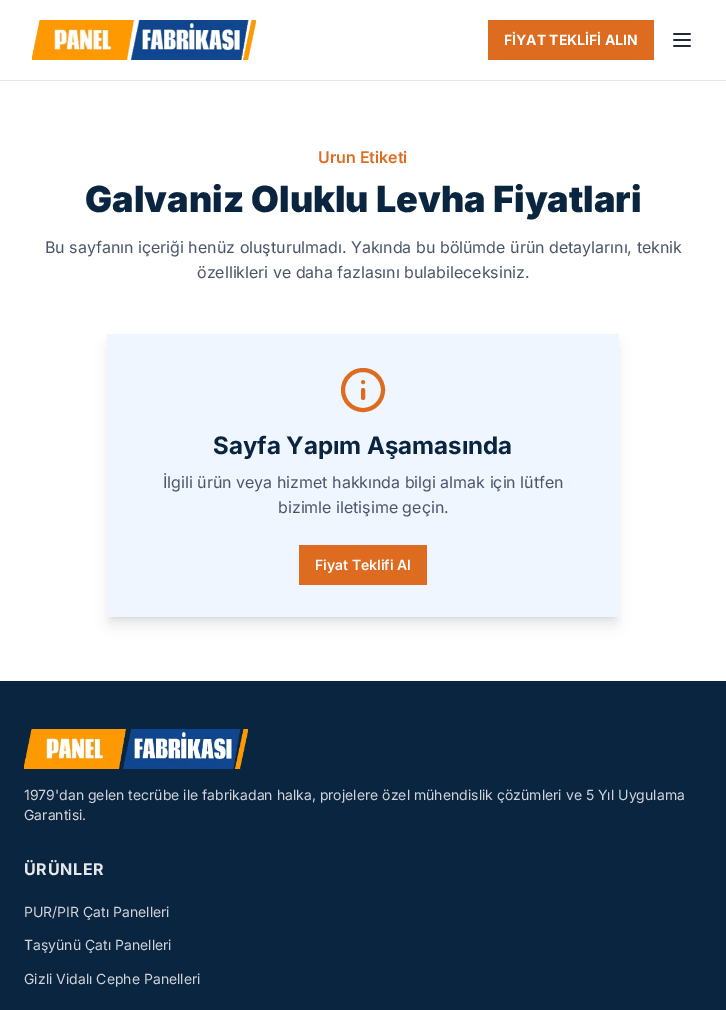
%!PS
<< /PageSize [726 1010] /PageUsesTransparency true >> setpagedevice
/mt/moveto load def
/li/lineto load def
/st/stroke load def
/lw/setlinewidth load def
/co { dup -16 bitshift 255 div exch dup -8 bitshift 255 and 255 div exch 255 and 255 div setrgbcolor } def
/fn { [ exch dup neg 0 0 3 -1 roll 0 0 ] selectfont } def
/tx { co fn moveto show } def
/bx { co rectfill } def
/al { dup .setfillconstantalpha .setstrokeconstantalpha } def
/ci { newpath 0 360 arc closepath } def
/rr { 5 dict begin { /r /h /w /y /x } { exch def } forall
  x r add y moveto x w add y 2 copy h add r arct x w add y h add x 1 index r arct
  x y h add x y r arct x y 2 copy exch w add exch r arct closepath end } def
/sh { 12 dict begin { /a /b /q /h /w /y /x } { exch def } forall gsave /was 0 def
  9 -2 -9 { dup b mul 4 div /e exch def 1 sub .425 mul 2.718 exch exp 1 add a .99 .min exch div /now exch def
    1 1 now sub 1 was sub div sub al /was now def
    w h .min e 2 mul add 0 gt { x e sub y e sub w e 2 mul add h e 2 mul add
      q e add b .6 mul add w h .min 2 div e add .min 0 .max rr fill } if } for grestore end } def
/im { 5 dict begin { /h /w /y /x /name } { exch def } forall
  gsave x y translate w h scale
  w h 8 [w 0 0 h 0 0] name (r) file false 3 colorimage grestore end } def
0 .pushpdf14devicefilter
0 1010 translate 1 -1 scale
4 setmiterlimit
0 0 726 1010 16#FFFFFF bx
0 80 726 1 16#E5E7EB bx
(media/1.raw) 32 20 224 40 im
488 20 166 40 16#DD6B20 bx
(media/2.raw) 673 33 18 14 im
16#000000 co
111 342 504 275 0 3 .1 sh
110 347 506 277 0 7.5 .1 sh
107 334 512 283 16#EFF6FF bx
16#DD6B20 co
4 lw
363 390 20 ci st
1 setlinecap
1 setlinejoin
363 398 mt 363 390 li 363 382 mt 363 382 li st
299 545 128 40 16#DD6B20 bx
0 681 726 329 16#0A2540 bx
(media/3.raw) 24 729 224 40 im
(FİYAT TEKLİFİ ALIN) 504 45 /Inter-Bold 14 16#FFFFFF tx
(Urun Etiketi) 318 163 /Inter-SemiBold 16 16#DD6B20 tx
(Galvaniz Oluklu Levha Fiyatlari) 85 212 /Inter-Black 36 16#0A2540 tx
(Bu sayfanın içeriği henüz oluşturulmadı. Yakında bu bölümde ürün detaylarını, teknik) 45 253 /Inter-Regular 16 16#4A5568 tx
(özellikleri ve daha fazlasını bulabileceksiniz.) 197 278 /Inter-Regular 16 16#4A5568 tx
(Sayfa Yapım Aşamasında) 213 454 /Inter-Bold 24 16#0A2540 tx
(İlgili ürün veya hizmet hakkında bilgi almak için lütfen) 163 488 /Inter-Regular 16 16#4A5568 tx
(bizimle iletişime geçin.) 278 513 /Inter-Regular 16 16#4A5568 tx
(Fiyat Teklifi Al) 315 570 /Inter-SemiBold 14 16#FFFFFF tx
(1979'dan gelen tecrübe ile fabrikadan halka, projelere özel mühendislik çözümleri ve 5 Yıl Uygulama) 24 800 /Inter-Regular 14 16#D1D5DB tx
(Garantisi.) 24 820 /Inter-Regular 14 16#D1D5DB tx
/Inter-Bold 16 fn
16#E5E7EB co
24 875 mt .75 0 (ÜRÜNLER) ashow
(PUR/PIR Çatı Panelleri) 24 917 /Inter-Regular 14 16#D1D5DB tx
(Taşyünü Çatı Panelleri) 24 950 /Inter-Regular 14 16#D1D5DB tx
(Gizli Vidalı Cephe Panelleri) 24 984 /Inter-Regular 14 16#D1D5DB tx
.poppdf14devicefilter showpage
